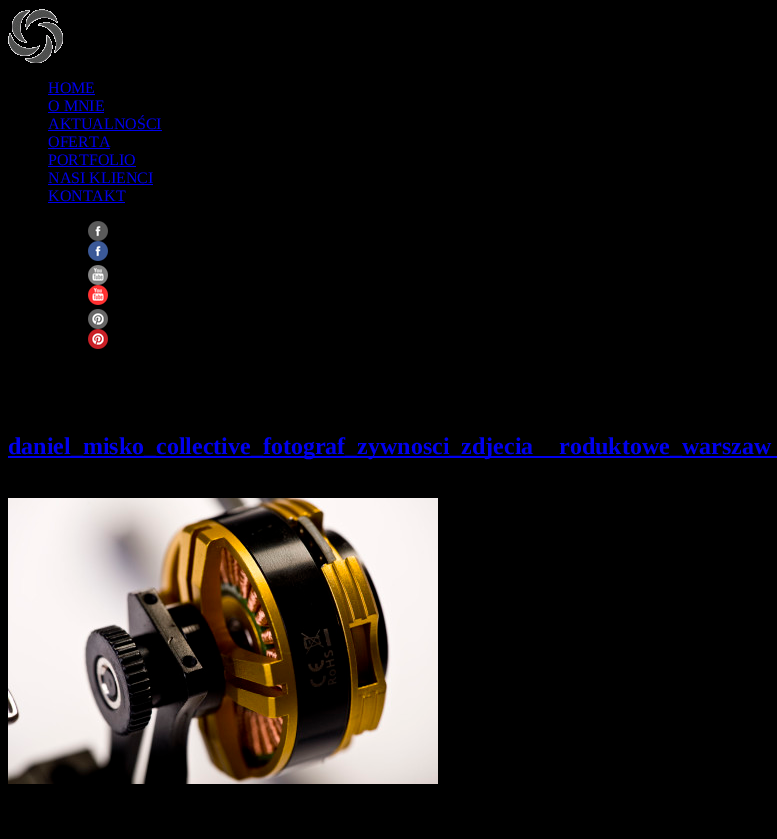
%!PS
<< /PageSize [777 839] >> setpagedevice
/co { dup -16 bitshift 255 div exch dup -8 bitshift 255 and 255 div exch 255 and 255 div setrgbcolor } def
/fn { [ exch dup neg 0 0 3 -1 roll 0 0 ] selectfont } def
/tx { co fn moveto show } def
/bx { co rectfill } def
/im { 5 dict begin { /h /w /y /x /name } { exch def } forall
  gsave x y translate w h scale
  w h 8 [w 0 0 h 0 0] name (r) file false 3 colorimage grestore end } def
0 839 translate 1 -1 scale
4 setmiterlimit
0 0 777 839 16#000000 bx
(media/1.raw) 8 9 55 54 im
48 94 47 1 16#0000EE bx
48 112 56 1 16#0000EE bx
48 130 114 1 16#0000EE bx
48 148 62 1 16#0000EE bx
48 166 88 1 16#0000EE bx
48 184 105 1 16#0000EE bx
48 202 77 1 16#0000EE bx
(media/2.raw) 88 221 20 40 im
(media/3.raw) 88 265 20 40 im
(media/4.raw) 88 309 20 40 im
8 456 769 2 16#0000EE bx
(media/5.raw) 8 498 430 286 im
(HOME) 48 93 /LiberationSerif-Regular 16 16#0000EE tx
(O MNIE) 48 111 /LiberationSerif-Regular 16 16#0000EE tx
(AKTUALNOŚCI) 48 129 /LiberationSerif-Regular 16 16#0000EE tx
(OFERTA) 48 147 /LiberationSerif-Regular 16 16#0000EE tx
(PORTFOLIO) 48 165 /LiberationSerif-Regular 16 16#0000EE tx
(NASI KLIENCI) 48 183 /LiberationSerif-Regular 16 16#0000EE tx
(KONTAKT) 48 201 /LiberationSerif-Regular 16 16#0000EE tx
(daniel_misko_collective_fotograf_zywnosci_zdjecia) 8 454 /LiberationSerif-Bold 24 16#0000EE tx
(roduktowe_warszaw) 559 454 /LiberationSerif-Bold 24 16#0000EE tx
showpage
